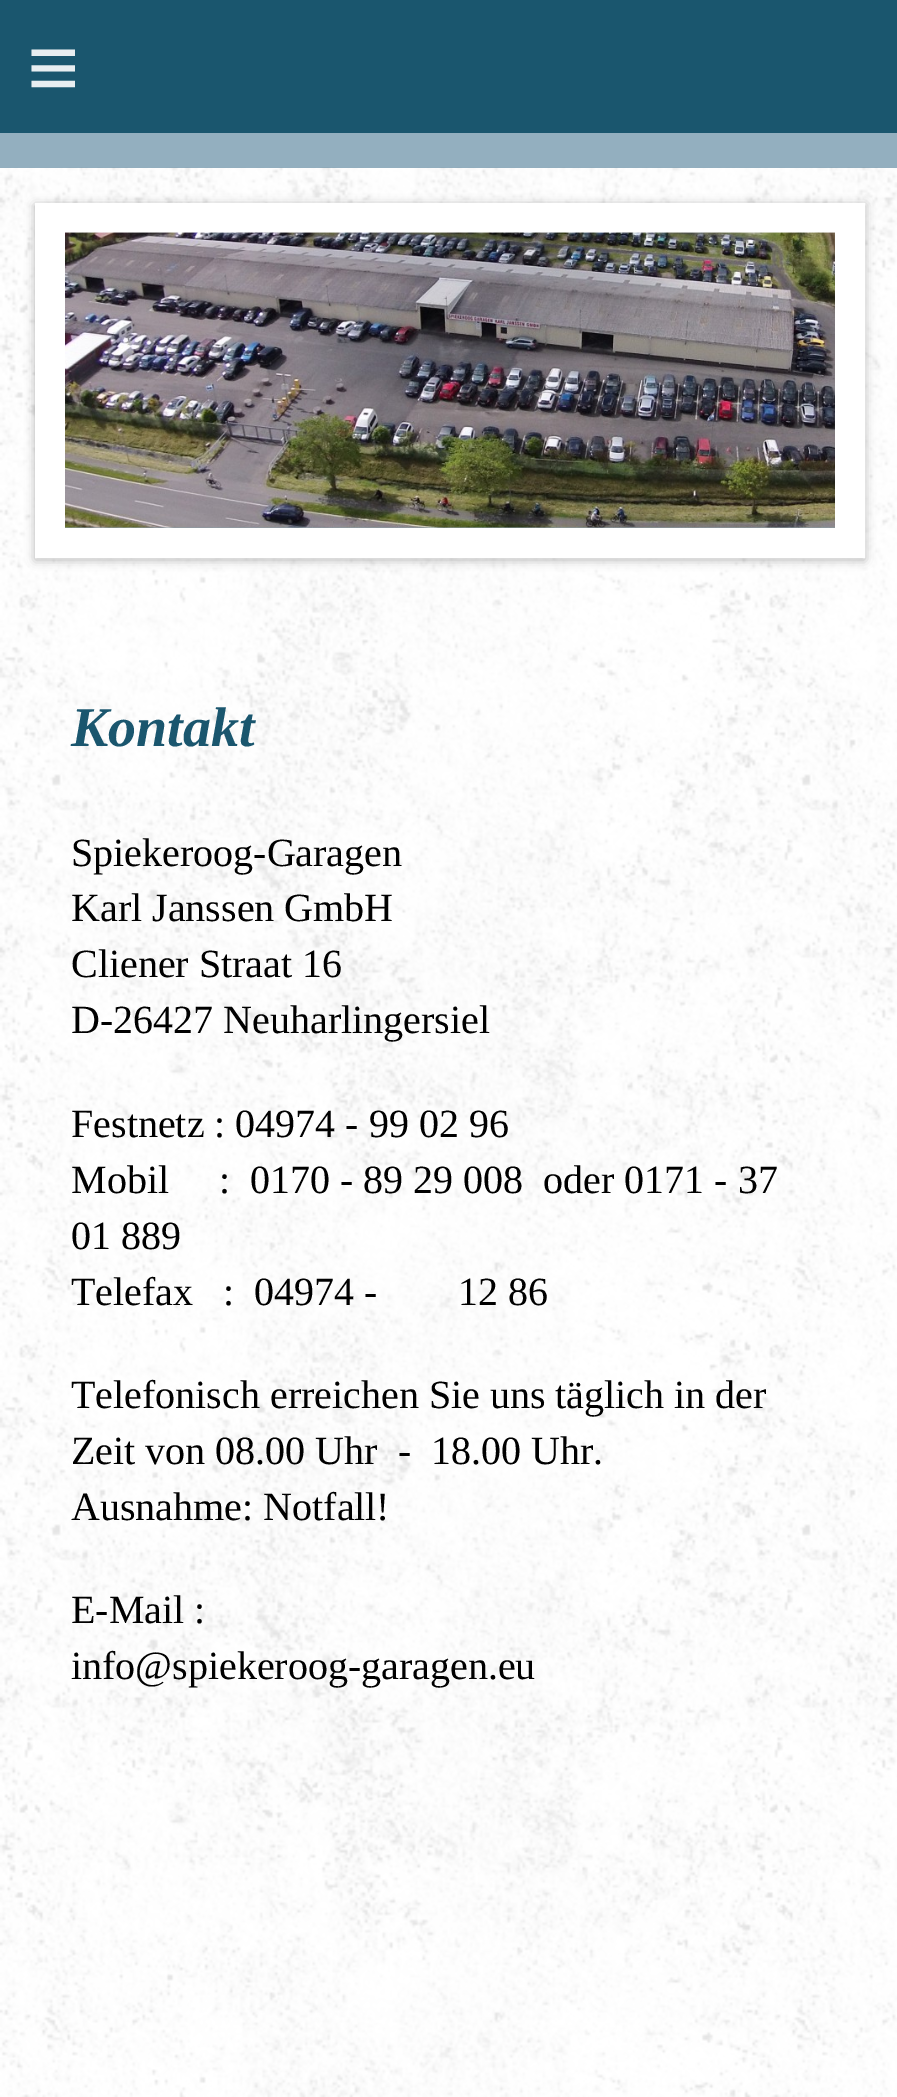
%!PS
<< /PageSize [897 2097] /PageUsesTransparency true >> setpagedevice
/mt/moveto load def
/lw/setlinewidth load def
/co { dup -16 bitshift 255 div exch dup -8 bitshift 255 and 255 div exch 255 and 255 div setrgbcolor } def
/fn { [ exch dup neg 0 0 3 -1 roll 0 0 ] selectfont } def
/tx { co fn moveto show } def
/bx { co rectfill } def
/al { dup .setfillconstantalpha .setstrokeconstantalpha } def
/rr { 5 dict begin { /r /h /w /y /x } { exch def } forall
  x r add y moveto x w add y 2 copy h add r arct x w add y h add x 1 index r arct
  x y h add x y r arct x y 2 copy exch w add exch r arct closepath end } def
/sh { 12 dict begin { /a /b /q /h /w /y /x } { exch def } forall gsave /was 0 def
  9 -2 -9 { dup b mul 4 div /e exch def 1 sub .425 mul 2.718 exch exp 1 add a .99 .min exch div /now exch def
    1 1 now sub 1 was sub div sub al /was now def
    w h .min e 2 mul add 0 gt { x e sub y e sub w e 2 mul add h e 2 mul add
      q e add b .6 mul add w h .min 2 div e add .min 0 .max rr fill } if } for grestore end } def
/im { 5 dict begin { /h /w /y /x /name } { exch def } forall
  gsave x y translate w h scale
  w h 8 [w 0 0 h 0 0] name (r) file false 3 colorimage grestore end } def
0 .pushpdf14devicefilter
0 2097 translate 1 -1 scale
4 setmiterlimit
0 0 897 2097 16#93AFBF bx
0 0 897 133 16#1A566E bx
0 168 897 1929 16#FFFFFF bx
(media/1.raw) 0 167 897 1930 im
16#000000 co
35 205 830 355 0 5 .3 sh
65 527 770 1 16#8B9EA6 bx
16#FFFFFF co
30 lw
50 218 800 325 rectstroke
(media/2.raw) 65 232 770 296 im
(media/3.raw) 65 232 770 296 im
/LiberationSans-Regular 90 fn
16#E8EEF1 co
27 98 mt 26 0 (≡) ashow
(Kontakt) 71 746 /LiberationSerif-BoldItalic 56 16#1A566E tx
(Spiekeroog-Garagen) 71 866 /LiberationSerif-Regular 40 16#000000 tx
(Karl Janssen GmbH) 71 921 /LiberationSerif-Regular 40 16#000000 tx
(Cliener Straat 16) 71 977 /LiberationSerif-Regular 40 16#000000 tx
(D-26427 Neuharlingersiel) 71 1033 /LiberationSerif-Regular 40 16#000000 tx
(Festnetz : 04974 - 99 02 96) 71 1137 /LiberationSerif-Regular 40 16#000000 tx
(Mobil     :  0170 - 89 29 008  oder 0171 - 37) 71 1193 /LiberationSerif-Regular 40 16#000000 tx
(01 889) 71 1249 /LiberationSerif-Regular 40 16#000000 tx
(Telefax   :  04974 -        12 86) 71 1305 /LiberationSerif-Regular 40 16#000000 tx
(Telefonisch erreichen Sie uns täglich in der) 71 1408 /LiberationSerif-Regular 40 16#000000 tx
(Zeit von 08.00 Uhr  -  18.00 Uhr.) 71 1464 /LiberationSerif-Regular 40 16#000000 tx
(Ausnahme: Notfall!) 71 1520 /LiberationSerif-Regular 40 16#000000 tx
(E-Mail :) 71 1623 /LiberationSerif-Regular 40 16#000000 tx
(info@spiekeroog-garagen.eu) 71 1679 /LiberationSerif-Regular 40 16#000000 tx
.poppdf14devicefilter showpage
